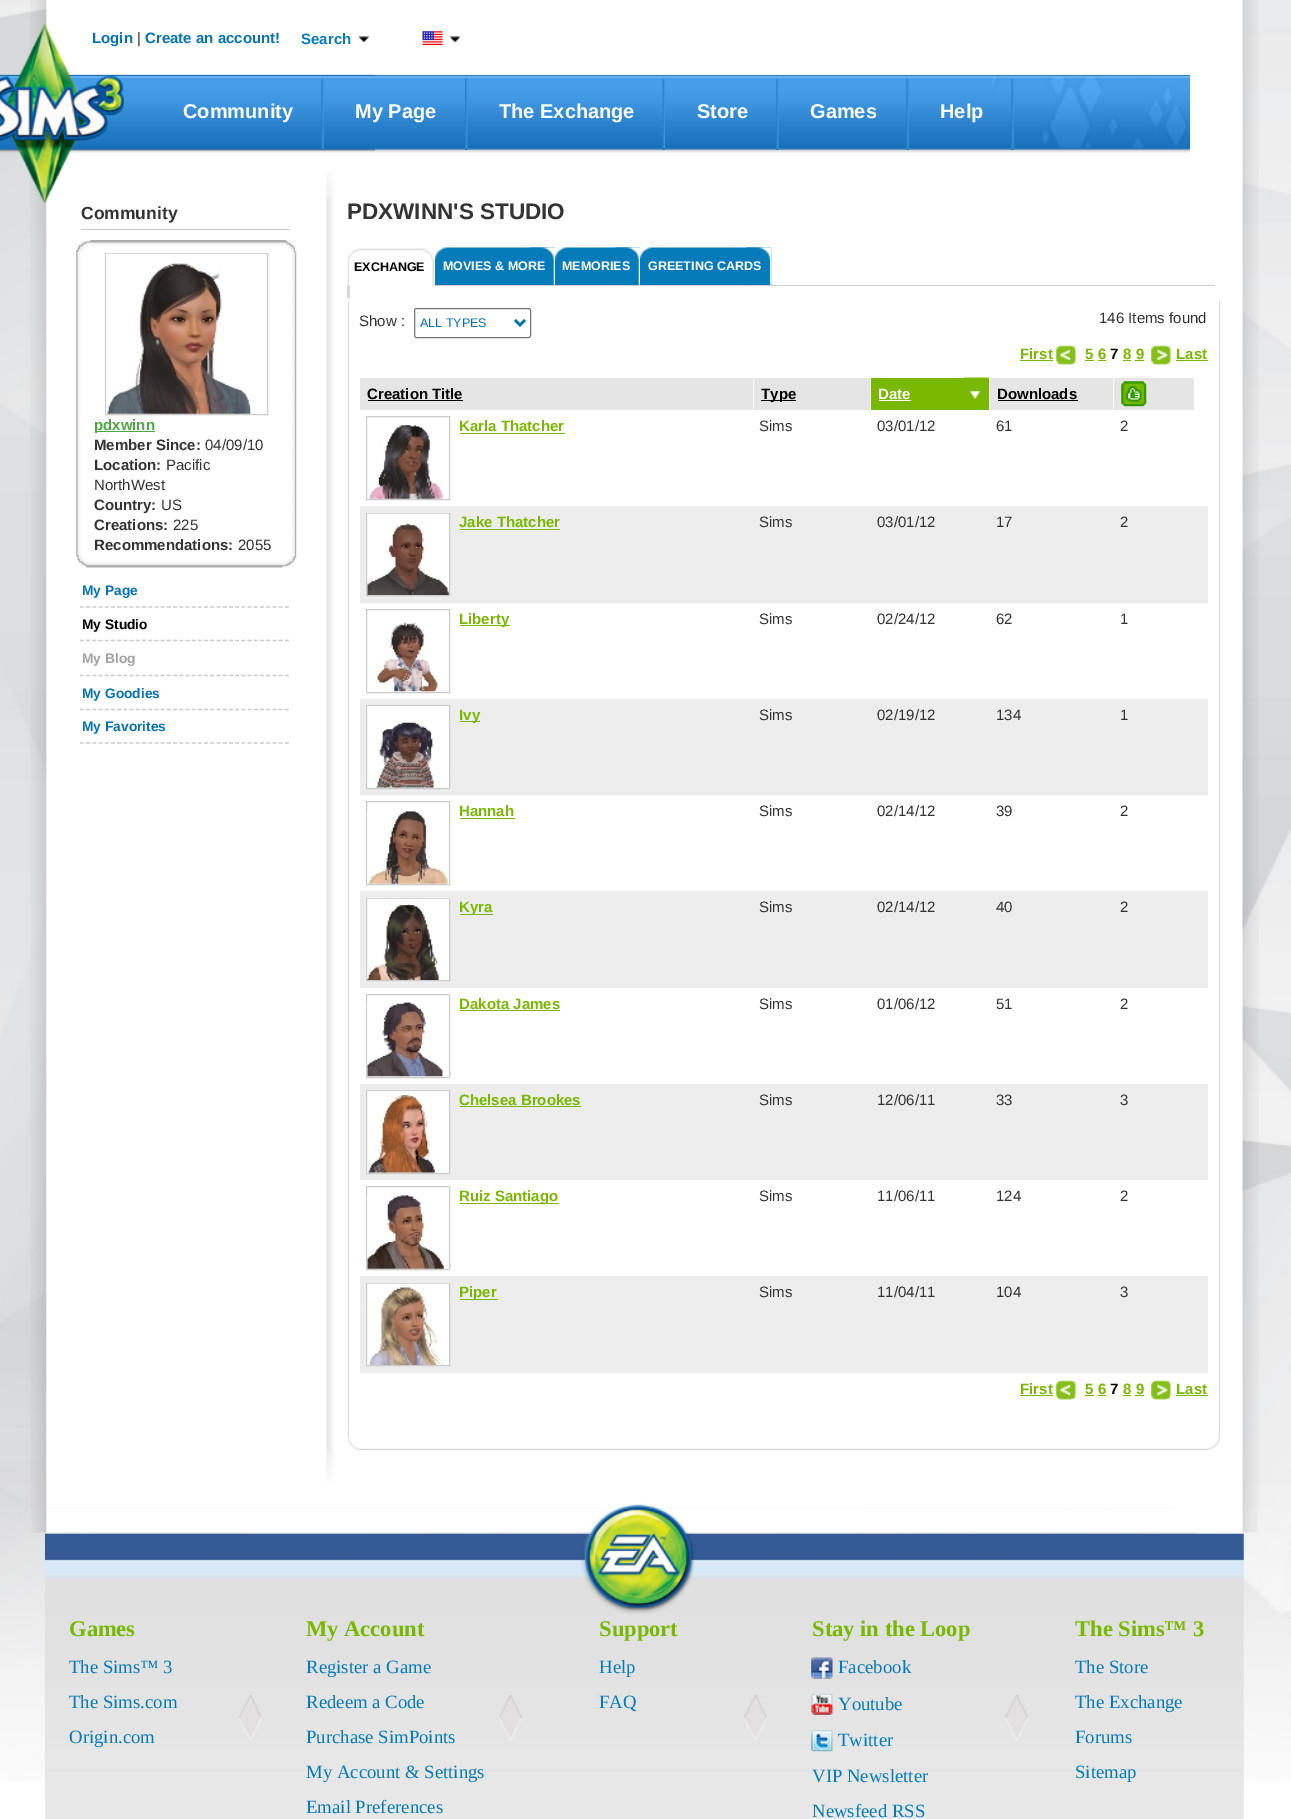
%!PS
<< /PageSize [1291 1819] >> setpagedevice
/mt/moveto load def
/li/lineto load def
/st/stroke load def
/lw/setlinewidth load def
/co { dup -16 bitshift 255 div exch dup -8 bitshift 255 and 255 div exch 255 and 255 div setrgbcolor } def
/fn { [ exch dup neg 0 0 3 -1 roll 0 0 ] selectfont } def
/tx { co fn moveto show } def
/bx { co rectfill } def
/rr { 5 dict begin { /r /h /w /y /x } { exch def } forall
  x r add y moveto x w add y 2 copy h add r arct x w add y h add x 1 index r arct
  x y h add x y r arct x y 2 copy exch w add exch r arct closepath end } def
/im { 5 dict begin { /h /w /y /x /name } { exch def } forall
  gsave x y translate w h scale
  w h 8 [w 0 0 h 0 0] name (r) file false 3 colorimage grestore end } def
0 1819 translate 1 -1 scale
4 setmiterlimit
0 0 1291 1819 16#FFFFFF bx
(media/1.raw) 0 0 1291 1781 im
(media/13.raw) 30 0 1229 1509 im
(media/2.raw) 358 36 12 7 im
(media/3.raw) 449 36 12 7 im
(media/4.raw) 422 31 21 14 im
(media/5.raw) 0 74 375 78 im
(media/6.raw) 0 74 1190 79 im
(media/7.raw) 0 23 124 180 im
(media/8.raw) 321 78 3 72 im
(media/9.raw) 465 78 3 72 im
(media/10.raw) 662 78 3 72 im
(media/11.raw) 776 78 3 72 im
(media/11.raw) 906 78 3 72 im
(media/12.raw) 1011 78 3 72 im
(media/14.raw) 326 171 8 27 im
(media/15.raw) 326 198 8 1252 im
81 229 209 1 16#CCCCCC bx
(media/16.raw) 76 240 221 13 im
(media/17.raw) 76 252 221 303 im
105.5 253.5 162 161 rectstroke
(media/18.raw) 106 253 160 161 im
95 431 60 1 16#4FA544 bx
(media/19.raw) 76 555 221 13 im
16#CCCCCC co
1.2 lw
[3.75 2.46] 0 setdash
80 607 mt 289 607 li st
80 640.5 mt 289 640.5 li st
80 675.5 mt 289 675.5 li st
80 709.5 mt 289 709.5 li st
80 743 mt 289 743 li st
435 285 780 1 16#CFCDCD bx
347 285 3 13 16#D9D7D8 bx
(media/20.raw) 347 248 88 39 im
(media/21.raw) 416 248 19 39 im
(media/22.raw) 435 247 120 38 im
(media/23.raw) 530 247 25 38 im
(media/24.raw) 555 247 85 38 im
(media/25.raw) 615 247 25 38 im
(media/26.raw) 640 247 132 38 im
(media/27.raw) 746 247 26 38 im
1219 301 1 1130 16#DAD8D9 bx
348 301 1 1130 16#DAD8D9 bx
16#767676 co
1 lw
[] 0 setdash
414.5 308.5 116 29 2 rr st
16#0473B2 co
2.5 lw
515 320 mt 520 325 li 525 320 li st
1020 360 33 1 16#78B800 bx
(media/28.raw) 1056 345 21 20 im
1085 360 9 1 16#78B800 bx
1123 360 8 1 16#78B800 bx
(media/29.raw) 1151 345 21 20 im
1176 360 32 1 16#78B800 bx
1098 360 8 1 16#78B800 bx
1135 360 9 1 16#78B800 bx
360 378 393 32 16#E5E5E5 bx
368 400 95 1 16#000000 bx
754 378 116 32 16#E5E5E5 bx
761 400 35 1 16#000000 bx
871 378 118 32 16#78B800 bx
(media/30.raw) 963 377 26 22 im
879 400 32 1 16#FFFFFF bx
990 378 123 32 16#E5E5E5 bx
998 400 80 1 16#000000 bx
1114 378 80 32 16#E5E5E5 bx
(media/31.raw) 1121 381 26 26 im
16#CCCCCC co
1 lw
366.5 416.5 83 83 rectstroke
(media/32.raw) 369 425 75 74 im
460 433 105 1 16#78B800 bx
360 506 848 97 16#EDEDED bx
16#CCCCCC co
366.5 513.5 83 82 rectstroke
(media/33.raw) 367 513 82 82 im
460 529 100 1 16#78B800 bx
16#CCCCCC co
366.5 609.5 83 83 rectstroke
(media/34.raw) 376 622 63 70 im
460 625 50 1 16#78B800 bx
360 699 848 96 16#EDEDED bx
16#CCCCCC co
366.5 705.5 83 83 rectstroke
(media/35.raw) 367 706 82 82 im
460 721 20 1 16#78B800 bx
16#CCCCCC co
366.5 801.5 83 83 rectstroke
(media/36.raw) 367 811 82 73 im
460 818 55 1 16#78B800 bx
360 891 848 97 16#EDEDED bx
16#CCCCCC co
366.5 898.5 83 82 rectstroke
(media/37.raw) 367 898 82 82 im
460 914 33 1 16#78B800 bx
16#CCCCCC co
366.5 994.5 83 83 rectstroke
(media/38.raw) 367 1002 76 75 im
460 1010 100 1 16#78B800 bx
360 1084 848 96 16#EDEDED bx
16#CCCCCC co
366.5 1090.5 83 83 rectstroke
(media/39.raw) 367 1091 82 82 im
460 1106 121 1 16#78B800 bx
16#CCCCCC co
366.5 1186.5 83 83 rectstroke
(media/40.raw) 367 1195 77 74 im
460 1203 99 1 16#78B800 bx
360 1276 848 97 16#EDEDED bx
16#CCCCCC co
366.5 1283.5 83 82 rectstroke
(media/41.raw) 367 1283 82 82 im
460 1299 38 1 16#78B800 bx
1020 1395 33 1 16#78B800 bx
(media/28.raw) 1056 1380 21 20 im
1085 1395 9 1 16#78B800 bx
1123 1395 8 1 16#78B800 bx
(media/29.raw) 1151 1380 21 20 im
1176 1395 32 1 16#78B800 bx
1098 1395 8 1 16#78B800 bx
1135 1395 9 1 16#78B800 bx
(media/42.raw) 1201 1431 19 19 im
(media/43.raw) 347 1431 854 19 im
(media/44.raw) 326 1450 8 32 im
(media/45.raw) 31 1508 1227 25 im
(media/47.raw) 45 1533 1199 286 im
(media/46.raw) 581 1503 114 111 im
(media/48.raw) 811 1657 22 22 im
(media/49.raw) 811 1693 22 22 im
(media/50.raw) 811 1730 22 22 im
(media/51.raw) 239 1695 23 46 im
(media/52.raw) 499 1695 23 46 im
(media/53.raw) 744 1695 23 46 im
(media/54.raw) 1005 1695 23 46 im
(Login) 92 43 /LiberationSans-Bold 15 16#0473B2 tx
(|) 137 43 /LiberationSans-Regular 15 16#333333 tx
(Create an account!) 145 43 /LiberationSans-Bold 15 16#0473B2 tx
(Search) 301 44 /LiberationSans-Bold 15 16#057BBA tx
(Community) 183 118 /LiberationSans-Bold 20 16#FFFFFF tx
(My Page) 355 118 /LiberationSans-Bold 20 16#FFFFFF tx
(The Exchange) 499 118 /LiberationSans-Bold 20 16#FFFFFF tx
(Store) 697 118 /LiberationSans-Bold 20 16#FFFFFF tx
(Games) 810 118 /LiberationSans-Bold 20 16#FFFFFF tx
(Help) 940 118 /LiberationSans-Bold 20 16#FFFFFF tx
(Community) 81 219 /LiberationSans-Bold 17.5 16#333333 tx
(pdxwinn) 94 430 /LiberationSans-Bold 15 16#4FA544 tx
(Member Since:) 94 450 /LiberationSans-Bold 15 16#333333 tx
(04/09/10) 205 450 /LiberationSans-Regular 15 16#333333 tx
(Location:) 94 470 /LiberationSans-Bold 15 16#333333 tx
(Pacific) 166 470 /LiberationSans-Regular 15 16#333333 tx
(NorthWest) 94 490 /LiberationSans-Regular 15 16#333333 tx
(Country:) 94 510 /LiberationSans-Bold 15 16#333333 tx
(US) 161 510 /LiberationSans-Regular 15 16#333333 tx
(Creations:) 94 530 /LiberationSans-Bold 15 16#333333 tx
(225) 173 530 /LiberationSans-Regular 15 16#333333 tx
(Recommendations:) 94 550 /LiberationSans-Bold 15 16#333333 tx
(2055) 238 550 /LiberationSans-Regular 15 16#333333 tx
(My Page) 82 595 /LiberationSans-Bold 13.75 16#0473B2 tx
(My Studio) 82 629 /LiberationSans-Bold 13.75 16#000000 tx
(My Blog) 82 663 /LiberationSans-Bold 13.75 16#A3A3A3 tx
(My Goodies) 82 698 /LiberationSans-Bold 13.75 16#0473B2 tx
(My Favorites) 82 731 /LiberationSans-Bold 13.75 16#0473B2 tx
(PDXWINN'S STUDIO) 347 219 /LiberationSans-Bold 22.5 16#333333 tx
(EXCHANGE) 354 271 /LiberationSans-Bold 12.5 16#000000 tx
(MOVIES & MORE) 443 270 /LiberationSans-Bold 12.5 16#FFFFFF tx
(MEMORIES) 562 270 /LiberationSans-Bold 12.5 16#FFFFFF tx
(GREETING CARDS) 648 270 /LiberationSans-Bold 12.5 16#FFFFFF tx
(Show :) 359 326 /LiberationSans-Regular 15 16#333333 tx
(ALL TYPES) 420 327 /LiberationSans-Regular 12.5 16#0473B2 tx
(146 Items found) 1099 323 /LiberationSans-Regular 15 16#333333 tx
(First) 1020 359 /LiberationSans-Bold 15 16#78B800 tx
(5 6) 1085 359 /LiberationSans-Bold 15 16#78B800 tx
(7) 1110 359 /LiberationSans-Bold 15 16#000000 tx
(8 9) 1123 359 /LiberationSans-Bold 15 16#78B800 tx
(Last) 1176 359 /LiberationSans-Bold 15 16#78B800 tx
(Creation Title) 367 399 /LiberationSans-Bold 15 16#000000 tx
(Type) 761 399 /LiberationSans-Bold 15 16#000000 tx
(Date) 878 399 /LiberationSans-Bold 15 16#FFFFFF tx
(Downloads) 997 399 /LiberationSans-Bold 15 16#000000 tx
(Karla Thatcher) 459 431 /LiberationSans-Bold 15 16#78B800 tx
(Sims) 759 431 /LiberationSans-Regular 15 16#333333 tx
(03/01/12) 877 431 /LiberationSans-Regular 15 16#333333 tx
(61) 996 431 /LiberationSans-Regular 15 16#333333 tx
(2) 1120 431 /LiberationSans-Regular 15 16#333333 tx
(Jake Thatcher) 459 527 /LiberationSans-Bold 15 16#78B800 tx
(Sims) 759 527 /LiberationSans-Regular 15 16#333333 tx
(03/01/12) 877 527 /LiberationSans-Regular 15 16#333333 tx
(17) 996 527 /LiberationSans-Regular 15 16#333333 tx
(2) 1120 527 /LiberationSans-Regular 15 16#333333 tx
(Liberty) 459 624 /LiberationSans-Bold 15 16#78B800 tx
(Sims) 759 624 /LiberationSans-Regular 15 16#333333 tx
(02/24/12) 877 624 /LiberationSans-Regular 15 16#333333 tx
(62) 996 624 /LiberationSans-Regular 15 16#333333 tx
(1) 1120 624 /LiberationSans-Regular 15 16#333333 tx
(Ivy) 459 720 /LiberationSans-Bold 15 16#78B800 tx
(Sims) 759 720 /LiberationSans-Regular 15 16#333333 tx
(02/19/12) 877 720 /LiberationSans-Regular 15 16#333333 tx
(134) 996 720 /LiberationSans-Regular 15 16#333333 tx
(1) 1120 720 /LiberationSans-Regular 15 16#333333 tx
(Hannah) 459 816 /LiberationSans-Bold 15 16#78B800 tx
(Sims) 759 816 /LiberationSans-Regular 15 16#333333 tx
(02/14/12) 877 816 /LiberationSans-Regular 15 16#333333 tx
(39) 996 816 /LiberationSans-Regular 15 16#333333 tx
(2) 1120 816 /LiberationSans-Regular 15 16#333333 tx
(Kyra) 459 912 /LiberationSans-Bold 15 16#78B800 tx
(Sims) 759 912 /LiberationSans-Regular 15 16#333333 tx
(02/14/12) 877 912 /LiberationSans-Regular 15 16#333333 tx
(40) 996 912 /LiberationSans-Regular 15 16#333333 tx
(2) 1120 912 /LiberationSans-Regular 15 16#333333 tx
(Dakota James) 459 1009 /LiberationSans-Bold 15 16#78B800 tx
(Sims) 759 1009 /LiberationSans-Regular 15 16#333333 tx
(01/06/12) 877 1009 /LiberationSans-Regular 15 16#333333 tx
(51) 996 1009 /LiberationSans-Regular 15 16#333333 tx
(2) 1120 1009 /LiberationSans-Regular 15 16#333333 tx
(Chelsea Brookes) 459 1105 /LiberationSans-Bold 15 16#78B800 tx
(Sims) 759 1105 /LiberationSans-Regular 15 16#333333 tx
(12/06/11) 877 1105 /LiberationSans-Regular 15 16#333333 tx
(33) 996 1105 /LiberationSans-Regular 15 16#333333 tx
(3) 1120 1105 /LiberationSans-Regular 15 16#333333 tx
(Ruiz Santiago) 459 1201 /LiberationSans-Bold 15 16#78B800 tx
(Sims) 759 1201 /LiberationSans-Regular 15 16#333333 tx
(11/06/11) 877 1201 /LiberationSans-Regular 15 16#333333 tx
(124) 996 1201 /LiberationSans-Regular 15 16#333333 tx
(2) 1120 1201 /LiberationSans-Regular 15 16#333333 tx
(Piper) 459 1297 /LiberationSans-Bold 15 16#78B800 tx
(Sims) 759 1297 /LiberationSans-Regular 15 16#333333 tx
(11/04/11) 877 1297 /LiberationSans-Regular 15 16#333333 tx
(104) 996 1297 /LiberationSans-Regular 15 16#333333 tx
(3) 1120 1297 /LiberationSans-Regular 15 16#333333 tx
(First) 1020 1394 /LiberationSans-Bold 15 16#78B800 tx
(5 6) 1085 1394 /LiberationSans-Bold 15 16#78B800 tx
(7) 1110 1394 /LiberationSans-Bold 15 16#000000 tx
(8 9) 1123 1394 /LiberationSans-Bold 15 16#78B800 tx
(Last) 1176 1394 /LiberationSans-Bold 15 16#78B800 tx
(Games) 69 1636 /LiberationSerif-Bold 22.5 16#78B800 tx
(The Sims™ 3) 69 1673 /LiberationSerif-Regular 18.75 16#057BBA tx
(The Sims.com) 69 1708 /LiberationSerif-Regular 18.75 16#057BBA tx
(Origin.com) 69 1743 /LiberationSerif-Regular 18.75 16#057BBA tx
(My Account) 306 1636 /LiberationSerif-Bold 22.5 16#78B800 tx
(Register a Game) 306 1673 /LiberationSerif-Regular 18.75 16#057BBA tx
(Redeem a Code) 306 1708 /LiberationSerif-Regular 18.75 16#057BBA tx
(Purchase SimPoints) 306 1743 /LiberationSerif-Regular 18.75 16#057BBA tx
(My Account & Settings) 306 1778 /LiberationSerif-Regular 18.75 16#057BBA tx
(Email Preferences) 306 1813 /LiberationSerif-Regular 18.75 16#057BBA tx
(Support) 599 1636 /LiberationSerif-Bold 22.5 16#78B800 tx
(Help) 599 1673 /LiberationSerif-Regular 18.75 16#057BBA tx
(FAQ) 599 1708 /LiberationSerif-Regular 18.75 16#057BBA tx
(Stay in the Loop) 812 1636 /LiberationSerif-Bold 22.5 16#78B800 tx
(Facebook) 838 1673 /LiberationSerif-Regular 18.75 16#057BBA tx
(Youtube) 838 1710 /LiberationSerif-Regular 18.75 16#057BBA tx
(Twitter) 838 1746 /LiberationSerif-Regular 18.75 16#057BBA tx
(VIP Newsletter) 812 1782 /LiberationSerif-Regular 18.75 16#057BBA tx
(Newsfeed RSS) 812 1817 /LiberationSerif-Regular 18.75 16#057BBA tx
(The Sims™ 3) 1075 1636 /LiberationSerif-Bold 22.5 16#78B800 tx
(The Store) 1075 1673 /LiberationSerif-Regular 18.75 16#057BBA tx
(The Exchange) 1075 1708 /LiberationSerif-Regular 18.75 16#057BBA tx
(Forums) 1075 1743 /LiberationSerif-Regular 18.75 16#057BBA tx
(Sitemap) 1075 1778 /LiberationSerif-Regular 18.75 16#057BBA tx
showpage
